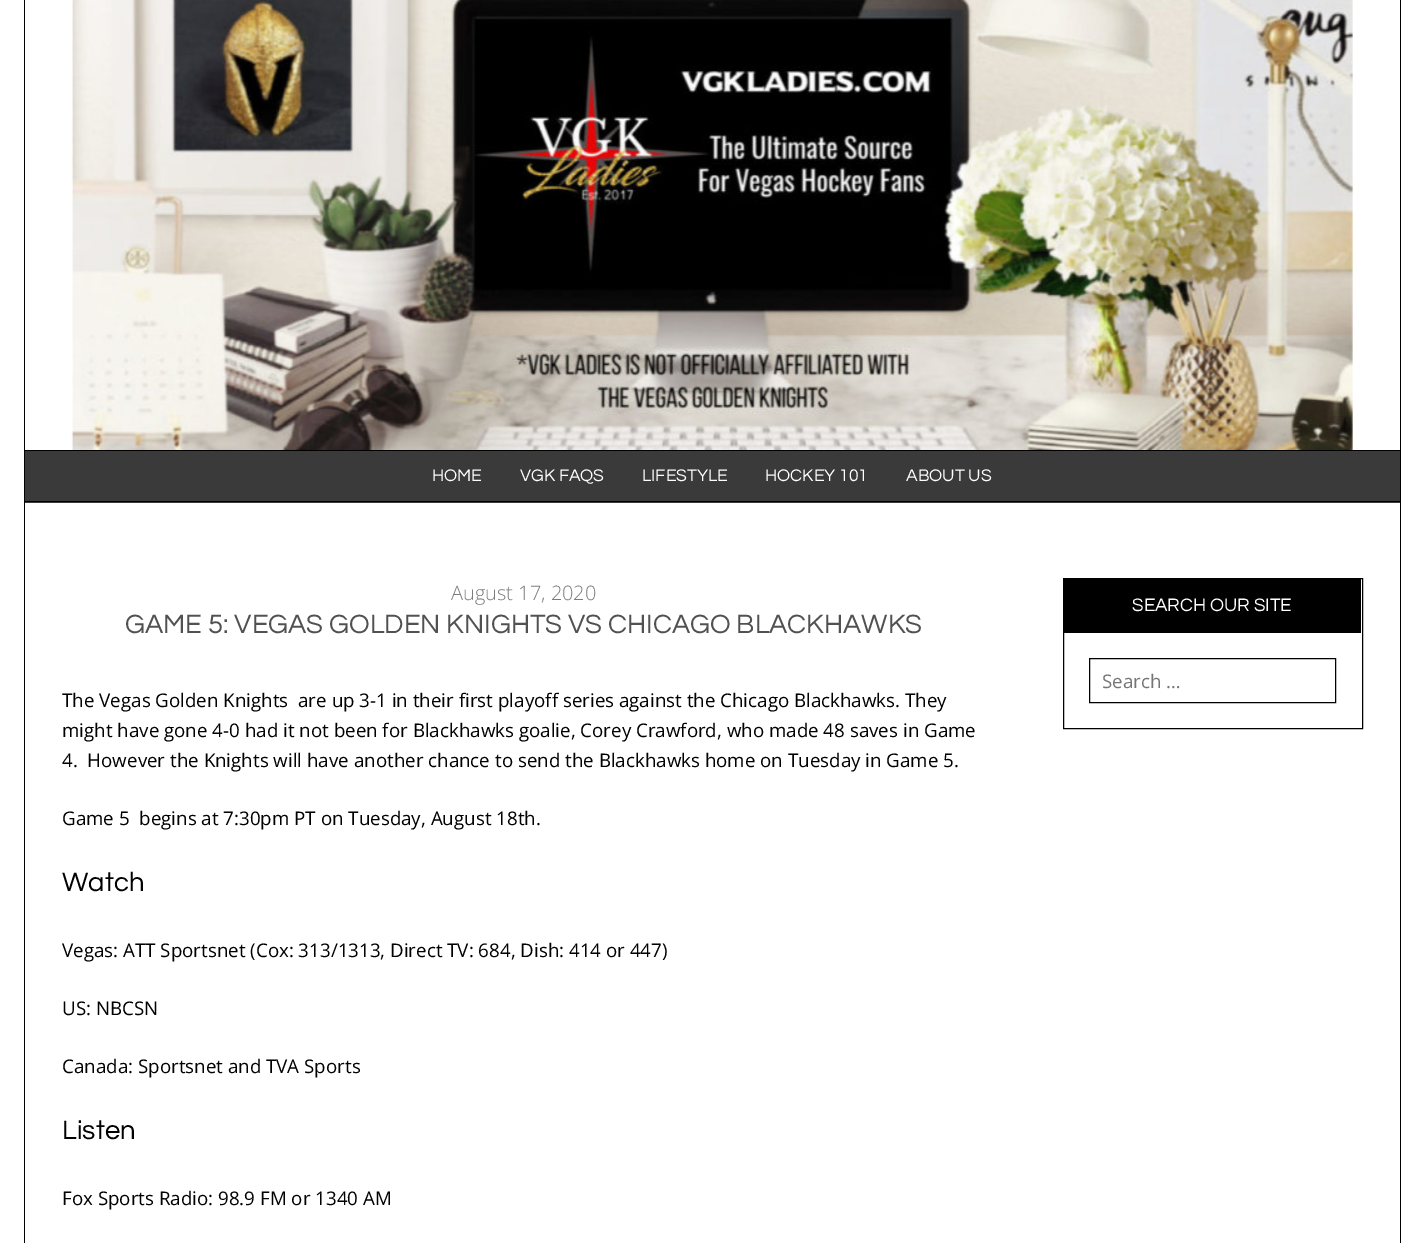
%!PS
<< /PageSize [1423 1243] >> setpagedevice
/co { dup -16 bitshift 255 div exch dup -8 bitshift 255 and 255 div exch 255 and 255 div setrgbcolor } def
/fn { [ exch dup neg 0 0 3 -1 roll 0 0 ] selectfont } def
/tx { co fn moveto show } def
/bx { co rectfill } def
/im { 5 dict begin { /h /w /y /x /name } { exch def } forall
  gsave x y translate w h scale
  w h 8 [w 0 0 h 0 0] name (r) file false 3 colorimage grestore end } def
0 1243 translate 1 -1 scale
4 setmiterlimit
0 0 1423 1243 16#FFFFFF bx
1400 0 1 1243 16#000000 bx
24 0 1 1243 16#000000 bx
(media/1.raw) 71 0 1282 450 im
25 451 1375 52 16#3A3A3A bx
25 450 1375 1 16#000000 bx
25 501 1375 1 16#000000 bx
1063.5 578.5 299 150 rectstroke
1064 579 297 54 16#000000 bx
1089.5 658.5 246 44 rectstroke
(HOME) 432 481 /Questrial-Regular 17.5 16#FFFFFF tx
(VGK FAQS) 520 481 /Questrial-Regular 17.5 16#FFFFFF tx
(LIFESTYLE) 642 481 /Questrial-Regular 17.5 16#FFFFFF tx
(HOCKEY 101) 765 481 /Questrial-Regular 17.5 16#FFFFFF tx
(ABOUT US) 906 481 /Questrial-Regular 17.5 16#FFFFFF tx
(August 17, 2020) 451 600 /OpenSans-Light 20 16#7C7C7C tx
(GAME 5: VEGAS GOLDEN KNIGHTS VS CHICAGO BLACKHAWKS) 125 633 /Questrial-Regular 27.5 16#525151 tx
(The Vegas Golden Knights  are up 3-1 in their first playoff series against the Chicago Blackhawks. They) 62 707 /OpenSans-Regular 18.75 16#000000 tx
(might have gone 4-0 had it not been for Blackhawks goalie, Corey Crawford, who made 48 saves in Game) 62 737 /OpenSans-Regular 18.75 16#000000 tx
(4.  However the Knights will have another chance to send the Blackhawks home on Tuesday in Game 5.) 62 767 /OpenSans-Regular 18.75 16#000000 tx
(Game 5  begins at 7:30pm PT on Tuesday, August 18th.) 62 825 /OpenSans-Regular 18.75 16#000000 tx
(Watch) 62 891 /Questrial-Regular 27.5 16#000000 tx
(Vegas: ATT Sportsnet \(Cox: 313/1313, Direct TV: 684, Dish: 414 or 447\)) 62 957 /OpenSans-Regular 18.75 16#000000 tx
(US: NBCSN) 62 1015 /OpenSans-Regular 18.75 16#000000 tx
(Canada: Sportsnet and TVA Sports) 62 1073 /OpenSans-Regular 18.75 16#000000 tx
(Listen) 62 1139 /Questrial-Regular 27.5 16#000000 tx
(Fox Sports Radio: 98.9 FM or 1340 AM) 62 1205 /OpenSans-Regular 18.75 16#000000 tx
(SEARCH OUR SITE) 1132 611 /Questrial-Regular 18.75 16#FFFFFF tx
(Search …) 1102 688 /OpenSans-Regular 18.75 16#757575 tx
showpage
